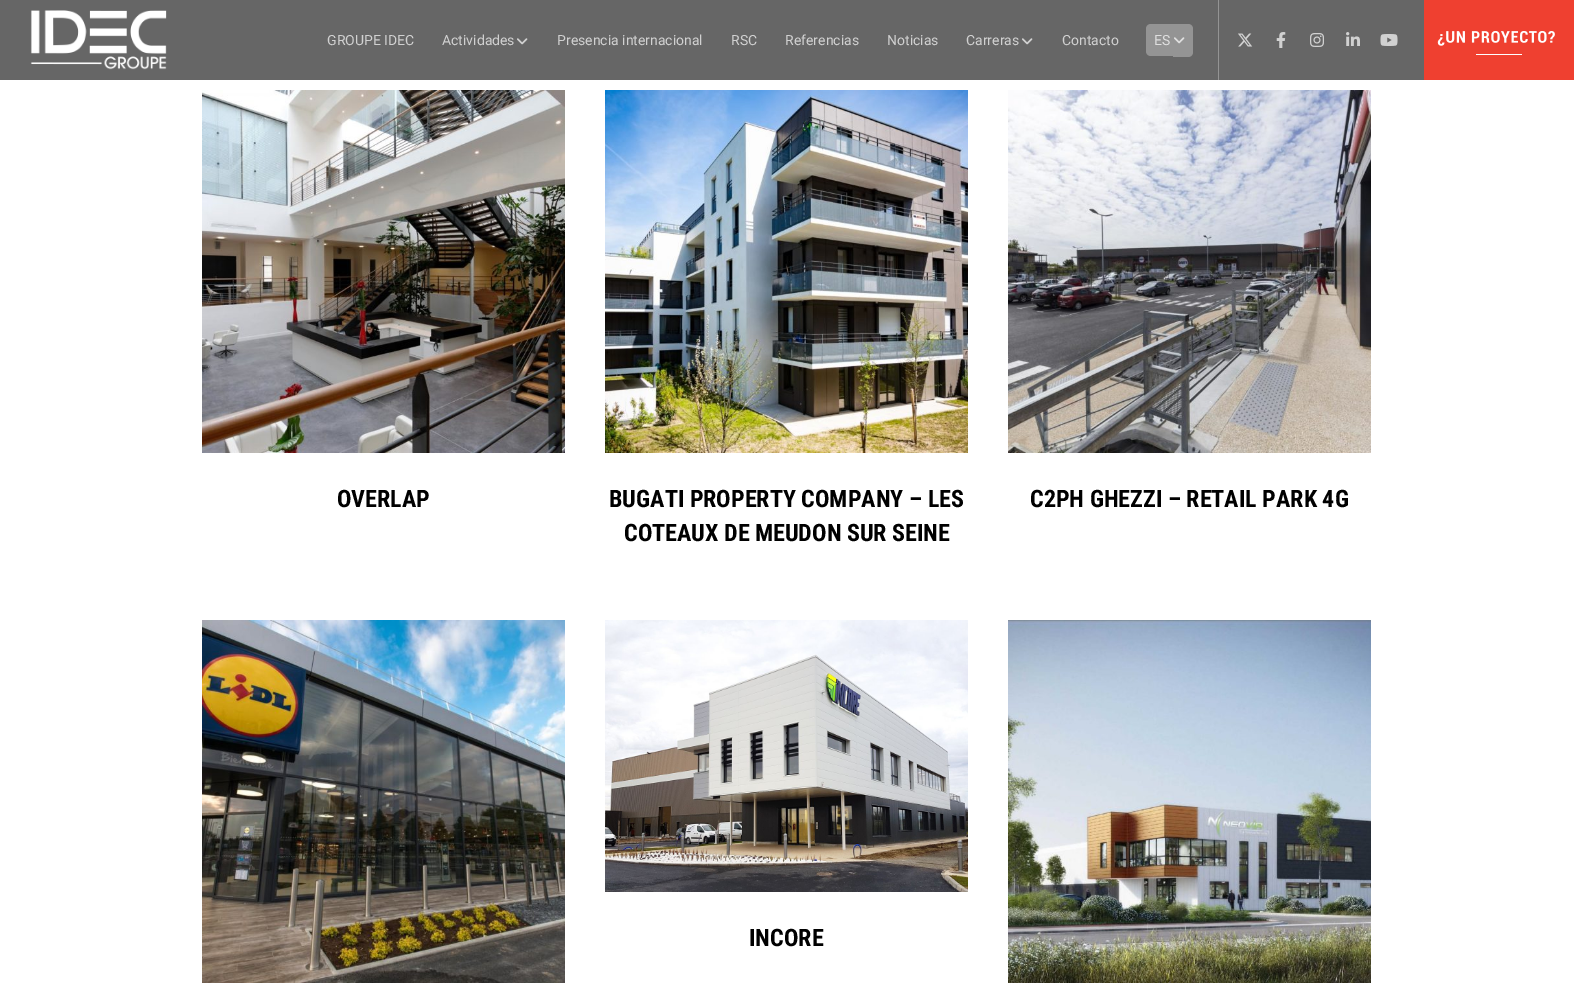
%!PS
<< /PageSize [1574 999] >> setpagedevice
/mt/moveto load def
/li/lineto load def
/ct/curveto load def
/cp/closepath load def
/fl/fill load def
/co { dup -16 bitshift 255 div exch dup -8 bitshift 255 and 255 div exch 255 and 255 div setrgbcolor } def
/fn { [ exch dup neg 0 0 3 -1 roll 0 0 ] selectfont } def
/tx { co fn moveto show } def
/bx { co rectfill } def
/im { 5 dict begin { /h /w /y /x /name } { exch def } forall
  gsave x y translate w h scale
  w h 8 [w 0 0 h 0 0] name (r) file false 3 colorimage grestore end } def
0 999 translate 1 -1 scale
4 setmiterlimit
0 0 1574 999 16#FFFFFF bx
0 0 1424 80 16#666666 bx
(media/1.raw) 30 10 137 60 im
(media/2.raw) 517 38 11 7 im
(media/2.raw) 1022 38 11 7 im
16#949494 co
1151 24 mt 1173 24 li 1173 56 li 1151 56 li 1148 56 1146 54 1146 51 ct 1146 29 li 1146 26 1148 24 1151 24 ct cp fl
1173 24 mt 1188 24 li 1191 24 1193 26 1193 29 ct 1193 52 li 1193 55 1191 57 1188 57 ct 1173 57 li cp fl
(media/3.raw) 1174 37 11 7 im
1218 0 1 80 16#949494 bx
(media/4.raw) 1238 33 15 14 im
(media/5.raw) 1276 32 10 16 im
(media/6.raw) 1310 33 14 14 im
(media/7.raw) 1346 32 14 14 im
(media/8.raw) 1380 34 18 12 im
1424 0 150 80 16#EF4030 bx
(media/9.raw) 1437 31 118 24 im
(media/10.raw) 202 90 363 363 im
(media/11.raw) 605 90 363 363 im
(media/12.raw) 1008 90 363 363 im
(media/13.raw) 202 620 363 363 im
(media/14.raw) 605 620 363 272 im
(media/15.raw) 1008 620 363 363 im
(GROUPE IDEC) 327 45 /Roboto-Regular 14 16#D1D1D1 tx
(Actividades) 442 45 /Roboto-Regular 14 16#D1D1D1 tx
(Presencia internacional) 557 45 /Roboto-Regular 14 16#D1D1D1 tx
(RSC) 731 45 /Roboto-Regular 14 16#D1D1D1 tx
(Referencias) 785 45 /Roboto-Regular 14 16#D1D1D1 tx
(Noticias) 887 45 /Roboto-Regular 14 16#D1D1D1 tx
(Carreras) 966 45 /Roboto-Regular 14 16#D1D1D1 tx
(Contacto) 1062 45 /Roboto-Regular 14 16#D1D1D1 tx
(ES) 1154 45 /Roboto-Regular 14 16#DFDFDF tx
(OVERLAP) 337 507 /RobotoCondensed-Bold 24 16#000000 tx
(BUGATI PROPERTY COMPANY – LES) 609 507 /RobotoCondensed-Bold 24 16#000000 tx
(COTEAUX DE MEUDON SUR SEINE) 624 541 /RobotoCondensed-Bold 24 16#000000 tx
(C2PH GHEZZI – RETAIL PARK 4G) 1030 507 /RobotoCondensed-Bold 24 16#000000 tx
(INCORE) 749 946 /RobotoCondensed-Bold 24 16#000000 tx
showpage
